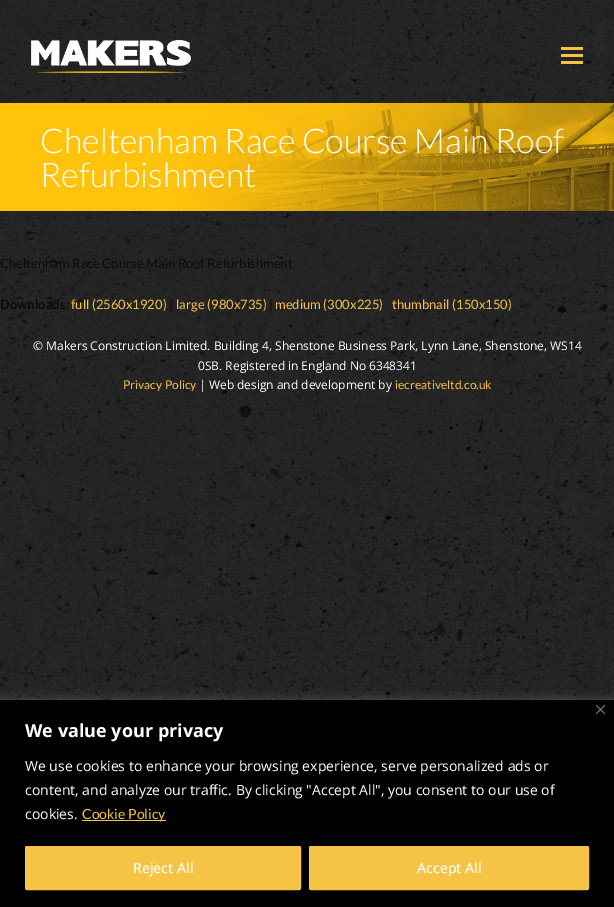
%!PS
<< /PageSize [614 907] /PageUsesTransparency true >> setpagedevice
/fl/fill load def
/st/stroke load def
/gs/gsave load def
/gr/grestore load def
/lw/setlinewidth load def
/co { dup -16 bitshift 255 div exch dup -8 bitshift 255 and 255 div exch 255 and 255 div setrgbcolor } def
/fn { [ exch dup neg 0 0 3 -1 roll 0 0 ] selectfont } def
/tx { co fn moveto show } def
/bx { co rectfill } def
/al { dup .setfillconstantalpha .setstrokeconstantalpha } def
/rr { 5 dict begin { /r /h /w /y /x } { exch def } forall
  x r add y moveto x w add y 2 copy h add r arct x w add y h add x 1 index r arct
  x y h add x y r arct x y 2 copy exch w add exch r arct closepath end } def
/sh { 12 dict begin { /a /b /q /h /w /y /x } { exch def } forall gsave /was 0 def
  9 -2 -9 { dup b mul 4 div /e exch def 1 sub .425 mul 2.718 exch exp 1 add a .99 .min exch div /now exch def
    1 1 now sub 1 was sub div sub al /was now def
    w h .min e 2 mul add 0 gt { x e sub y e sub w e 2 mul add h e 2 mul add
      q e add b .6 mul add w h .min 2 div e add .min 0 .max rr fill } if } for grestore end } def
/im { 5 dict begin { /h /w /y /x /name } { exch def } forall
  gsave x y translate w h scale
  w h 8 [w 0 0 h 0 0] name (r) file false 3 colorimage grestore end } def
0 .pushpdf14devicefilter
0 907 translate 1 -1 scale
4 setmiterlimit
0 0 614 907 16#FFFFFF bx
(media/1.raw) 0 0 614 700 im
(media/2.raw) 31 40 160 33 im
561 54 22 3 16#F6C445 bx
561 47 22 3 16#F6C445 bx
561 61 22 3 16#F6C445 bx
(media/3.raw) 0 103 614 108 im
16#ACABAB co
0 699 614 207 0 5 .3 sh
0 700 614 207 16#000000 bx
(media/4.raw) 596 705 9 9 im
82 820 84 1 16#F6C445 bx
26 847 274 42 1 rr gs fl gr
2 lw
st
310 847 278 42 1 rr gs fl gr
st
(Cheltenham Race Course Main Roof) 40 153 /Lato-Light 34 16#FFFFFF tx
(Refurbishment) 40 187 /Lato-Light 34 16#FFFFFF tx
(Cheltenham Race Course Main Roof Refurbishment) 0 268 /Lato-Regular 13 16#0A0A0A tx
(Downloads) 0 309 /Lato-Bold 13 16#0A0A0A tx
(:) 66 309 /Lato-Regular 13 16#0A0A0A tx
(full \(2560x1920\)) 71 309 /Lato-Regular 13 16#F6C445 tx
(|) 169 309 /Lato-Regular 13 16#0A0A0A tx
(large \(980x735\)) 176 309 /Lato-Regular 13 16#F6C445 tx
(|) 269 309 /Lato-Regular 13 16#0A0A0A tx
(medium \(300x225\)) 275 309 /Lato-Regular 13 16#F6C445 tx
(thumbnail \(150x150\)) 392 309 /Lato-Regular 13 16#F6C445 tx
(© Makers Construction Limited. Building 4, Shenstone Business Park, Lynn Lane, Shenstone, WS14) 33 350 /OpenSans-Regular 12 16#FFFFFF tx
(0SB. Registered in England No 6348341) 198 370 /OpenSans-Regular 12 16#FFFFFF tx
(Privacy Policy) 123 389 /Lato-Regular 12 16#F6C445 tx
(| Web design and development by) 199 389 /OpenSans-Regular 12 16#FFFFFF tx
(iecreativeltd.co.uk) 395 389 /Lato-Regular 12 16#F6C445 tx
(We value your privacy) 25 737 /OpenSans-Bold 18 16#FFFFFF tx
(We use cookies to enhance your browsing experience, serve personalized ads or) 25 771 /OpenSans-Regular 14 16#FFFFFF tx
(content, and analyze our traffic. By clicking "Accept All", you consent to our use of) 25 795 /OpenSans-Regular 14 16#FFFFFF tx
(cookies.) 25 819 /OpenSans-Regular 14 16#FFFFFF tx
(Cookie Policy) 82 819 /Lato-Regular 14 16#F6C445 tx
(Reject All) 133 873 /OpenSans-Medium 14 16#FFFFFF tx
(Accept All) 417 873 /OpenSans-Medium 14 16#FFFFFF tx
.poppdf14devicefilter showpage
